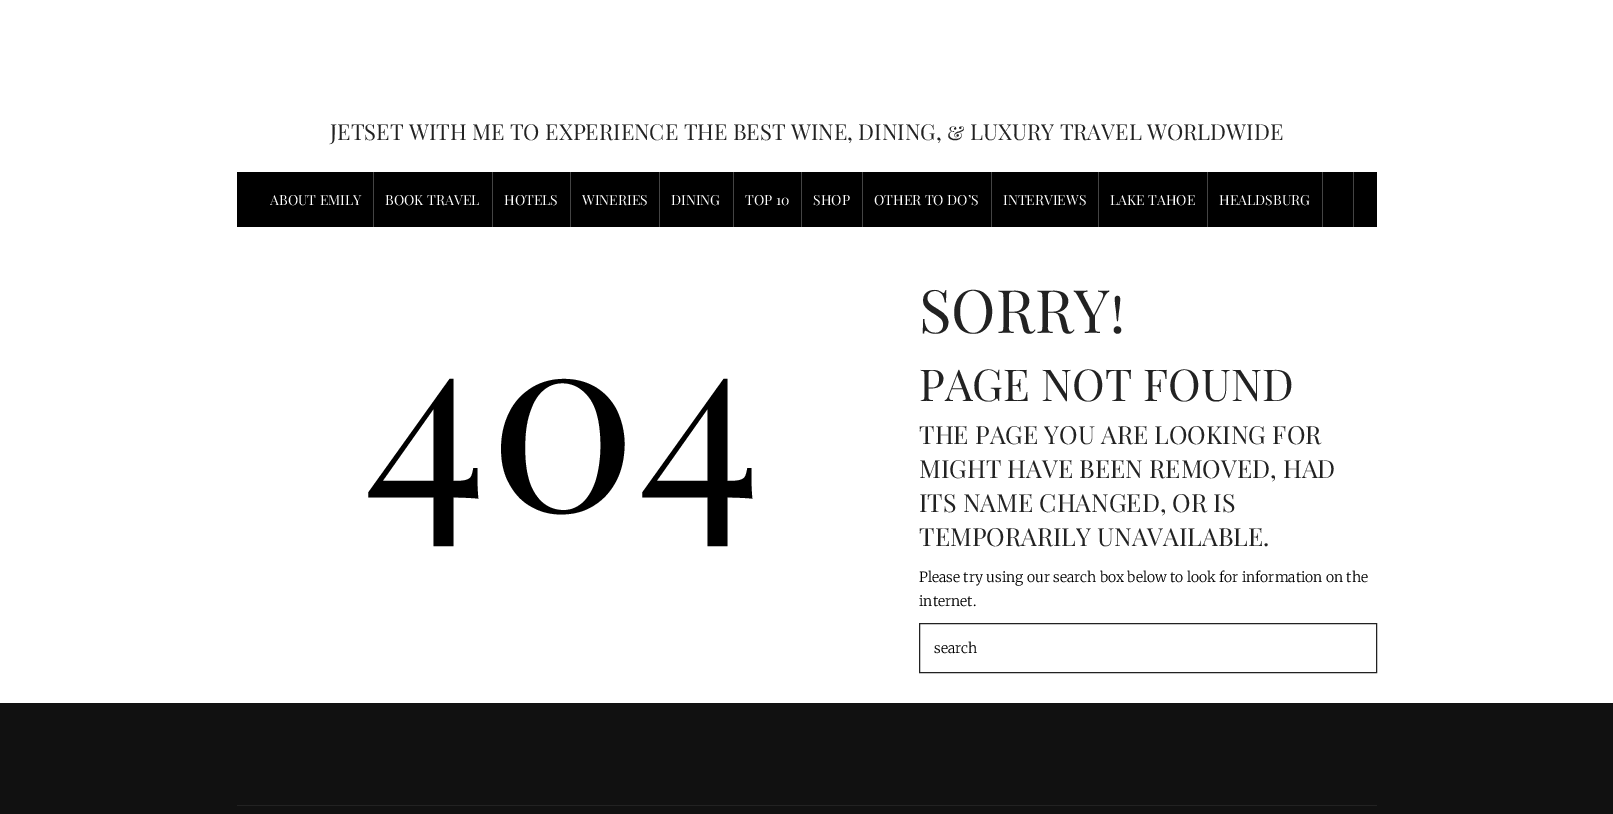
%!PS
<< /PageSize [1613 814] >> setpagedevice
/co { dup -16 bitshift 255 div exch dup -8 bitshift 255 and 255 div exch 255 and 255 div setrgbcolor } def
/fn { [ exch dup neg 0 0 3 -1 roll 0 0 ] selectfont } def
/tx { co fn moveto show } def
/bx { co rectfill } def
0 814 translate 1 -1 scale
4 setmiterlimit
0 0 1613 814 16#FFFFFF bx
237 172 1140 55 16#000000 bx
373 172 1 55 16#444444 bx
492 172 1 55 16#444444 bx
570 172 1 55 16#444444 bx
659 172 1 55 16#444444 bx
733 172 1 55 16#444444 bx
801 172 1 55 16#444444 bx
862 172 1 55 16#444444 bx
991 172 1 55 16#444444 bx
1098 172 1 55 16#444444 bx
1207 172 1 55 16#444444 bx
1322 172 1 55 16#444444 bx
1353 172 1 55 16#444444 bx
16#222222 co
919.5 623.5 457 49 rectstroke
0 703 1613 111 16#111111 bx
237 805 1140 1 16#222222 bx
(JETSET WITH ME TO EXPERIENCE THE BEST WINE, DINING, & LUXURY TRAVEL WORLDWIDE) 330 140 /PlayfairDisplaySC-Regular 22 16#222222 tx
(ABOUT EMILY) 270 205 /PlayfairDisplaySC-Regular 14 16#FFFFFF tx
(BOOK TRAVEL) 385 205 /PlayfairDisplaySC-Regular 14 16#FFFFFF tx
(HOTELS) 504 205 /PlayfairDisplaySC-Regular 14 16#FFFFFF tx
(WINERIES) 582 205 /PlayfairDisplaySC-Regular 14 16#FFFFFF tx
(DINING) 671 205 /PlayfairDisplaySC-Regular 14 16#FFFFFF tx
(TOP 10) 745 205 /PlayfairDisplaySC-Regular 14 16#FFFFFF tx
(SHOP) 813 205 /PlayfairDisplaySC-Regular 14 16#FFFFFF tx
(OTHER TO DO’S) 874 205 /PlayfairDisplaySC-Regular 14 16#FFFFFF tx
(INTERVIEWS) 1003 205 /PlayfairDisplaySC-Regular 14 16#FFFFFF tx
(LAKE TAHOE) 1110 205 /PlayfairDisplaySC-Regular 14 16#FFFFFF tx
(HEALDSBURG) 1219 205 /PlayfairDisplaySC-Regular 14 16#FFFFFF tx
(404) 364 511 /PlayfairDisplaySC-Regular 250 16#000000 tx
(SORRY!) 919 333 /PlayfairDisplaySC-Regular 60 16#222222 tx
(PAGE NOT FOUND) 919 401 /PlayfairDisplaySC-Regular 44 16#222222 tx
(THE PAGE YOU ARE LOOKING FOR) 919 444 /PlayfairDisplaySC-Regular 25 16#222222 tx
(MIGHT HAVE BEEN REMOVED, HAD) 919 478 /PlayfairDisplaySC-Regular 25 16#222222 tx
(ITS NAME CHANGED, OR IS) 919 512 /PlayfairDisplaySC-Regular 25 16#222222 tx
(TEMPORARILY UNAVAILABLE.) 919 546 /PlayfairDisplaySC-Regular 25 16#222222 tx
(Please try using our search box below to look for information on the) 919 582 /Merriweather-Light 14 16#000000 tx
(internet.) 919 606 /Merriweather-Light 14 16#000000 tx
(search) 934 653 /Merriweather-Light 14 16#000000 tx
showpage
